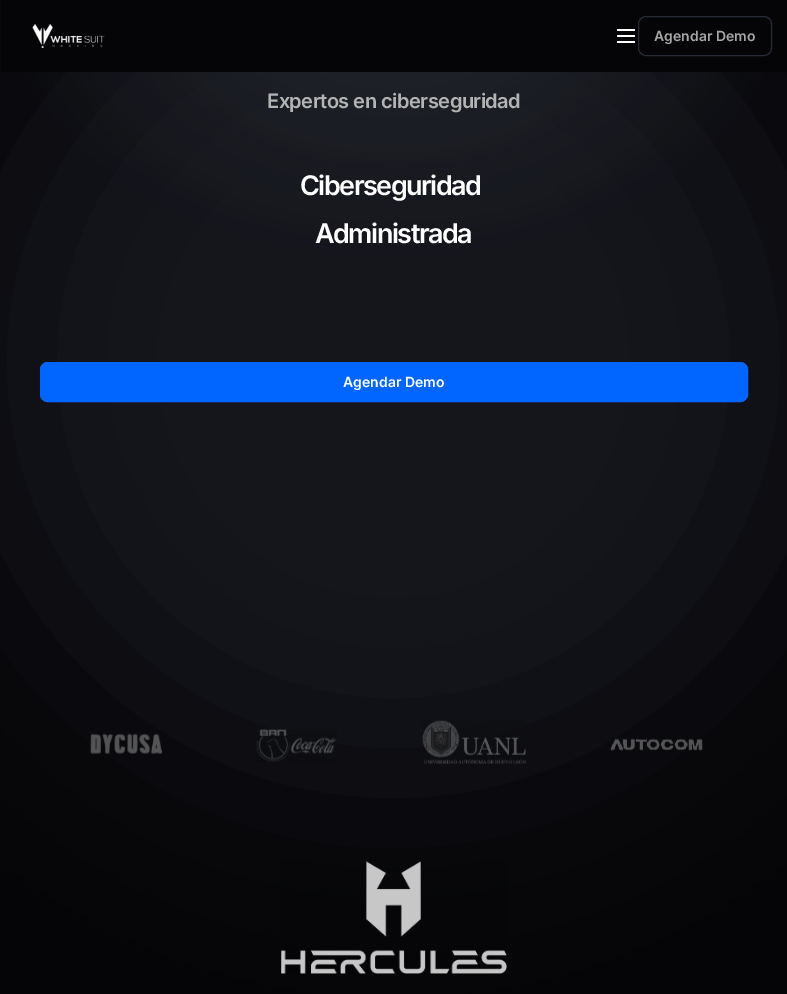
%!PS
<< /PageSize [787 994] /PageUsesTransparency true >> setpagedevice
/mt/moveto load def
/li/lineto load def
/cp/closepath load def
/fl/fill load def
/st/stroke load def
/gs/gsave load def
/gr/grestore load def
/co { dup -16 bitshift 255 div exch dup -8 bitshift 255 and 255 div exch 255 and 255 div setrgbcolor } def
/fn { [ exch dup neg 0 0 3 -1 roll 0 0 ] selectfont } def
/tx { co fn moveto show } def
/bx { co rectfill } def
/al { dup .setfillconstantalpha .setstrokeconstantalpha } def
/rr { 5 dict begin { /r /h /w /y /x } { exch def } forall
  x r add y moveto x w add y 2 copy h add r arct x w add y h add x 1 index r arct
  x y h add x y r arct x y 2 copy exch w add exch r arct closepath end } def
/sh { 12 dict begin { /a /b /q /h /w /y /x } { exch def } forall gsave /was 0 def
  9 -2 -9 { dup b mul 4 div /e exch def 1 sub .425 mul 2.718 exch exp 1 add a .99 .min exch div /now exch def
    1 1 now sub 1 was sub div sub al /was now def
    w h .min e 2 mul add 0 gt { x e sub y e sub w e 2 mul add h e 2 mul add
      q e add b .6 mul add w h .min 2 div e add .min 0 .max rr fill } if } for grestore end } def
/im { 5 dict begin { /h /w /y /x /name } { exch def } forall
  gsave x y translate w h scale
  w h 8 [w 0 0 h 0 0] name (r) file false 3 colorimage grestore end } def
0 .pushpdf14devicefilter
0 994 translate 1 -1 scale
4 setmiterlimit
0 0 787 994 16#FFFFFF bx
gs 0 0 mt 787 0 li 787 994 li 0 994 li cp clip newpath 394 0 translate 394 264 scale
<< /ShadingType 3 /ColorSpace /DeviceRGB /Coords [0 0 0 0 0 1] /Extend [true true] /Function << /FunctionType 2 /Domain [0 1] /C0 [.153 .169 .212] /C1 [.02 .02 .027] /N 1 >> >> shfill gr
16#202229 co
-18 -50 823 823 411.5 100 .6 sh
1 0 786 72 16#050507 bx
(media/1.raw) 32 24 73 24 im
16#FFFFFF co
617 29 18 2 1 rr fl
617 35 18 2 1 rr fl
617 41 18 2 1 rr fl
16#272B36 co
638.5 16.5 133 39 7.5 rr st
16#0066FF co
40 362 708 40 8 rr fl
40.5 362.5 707 39 7.5 rr st
(media/2.raw) 90 733 72 21 im
(media/3.raw) 256 729 81 33 im
(media/4.raw) 422 720 104 44 im
(media/5.raw) 610 738 93 13 im
(media/6.raw) 281 861 226 113 im
(Agendar Demo) 654 41 /Inter-SemiBold 14 16#A6A6A6 tx
/Inter-SemiBold 20 fn
16#B4B4B4 co
267 108 mt -.5 0 (Expertos en ciberseguridad) ashow
/Inter-SemiBold 27 fn
16#FFFFFF co
300 195 mt -1.5 0 (Ciberseguridad) ashow
315 243 mt -1.5 0 (Administrada) ashow
(Agendar Demo) 343 387 /Inter-SemiBold 14 16#FFFFFF tx
.poppdf14devicefilter showpage
